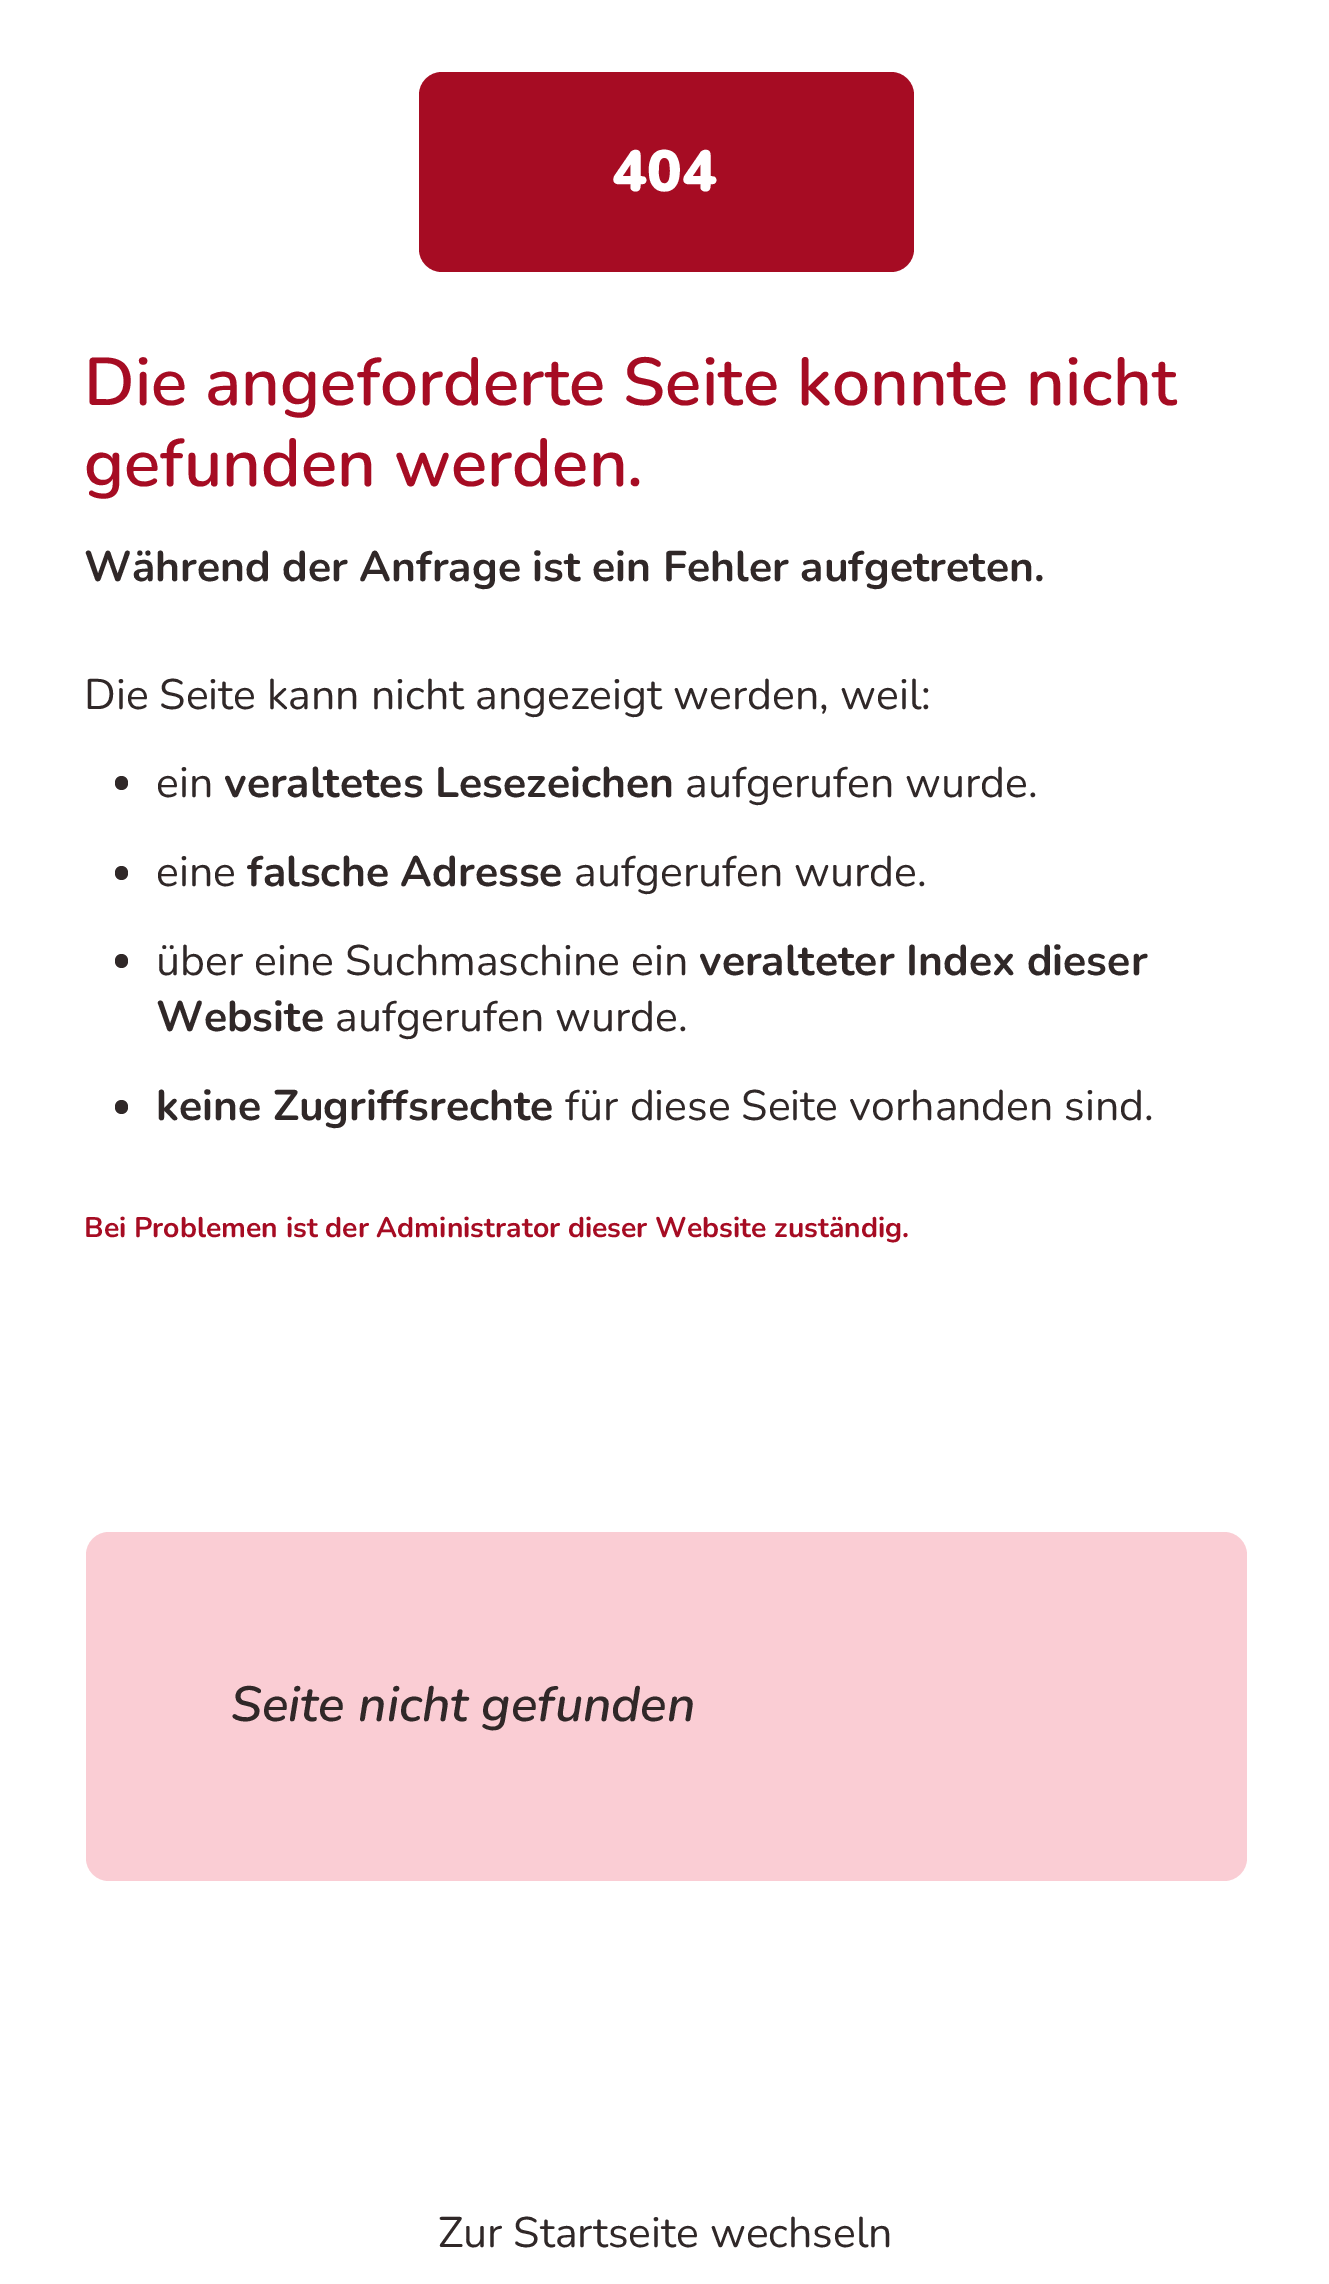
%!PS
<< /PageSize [1329 2284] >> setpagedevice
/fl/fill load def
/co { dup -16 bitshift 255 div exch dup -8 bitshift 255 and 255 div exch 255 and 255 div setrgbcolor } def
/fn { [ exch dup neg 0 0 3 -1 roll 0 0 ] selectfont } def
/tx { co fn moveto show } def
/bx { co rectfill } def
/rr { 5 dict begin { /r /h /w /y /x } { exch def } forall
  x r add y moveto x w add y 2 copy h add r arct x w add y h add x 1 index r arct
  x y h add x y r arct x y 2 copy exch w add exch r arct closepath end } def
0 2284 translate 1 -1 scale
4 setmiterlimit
0 0 1329 2284 16#FFFFFF bx
16#A60C23 co
419 72 495 200 23 rr fl
16#302828 co
115 776 13 14 6.5 rr fl
115 866 13 14 6.5 rr fl
115 954 13 14 6.5 rr fl
115 1100 13 14 6.5 rr fl
16#FACDD4 co
86 1532 1161 349 23 rr fl
(404) 612 191 /Nunito-Black 58 16#FFFFFF tx
(Die angeforderte Seite konnte nicht) 84 405 /Nunito-SemiBold 67.5 16#A60C23 tx
(gefunden werden.) 84 486 /Nunito-SemiBold 67.5 16#A60C23 tx
(Während der Anfrage ist ein Fehler aufgetreten.) 84 581 /Nunito-Bold 42.75 16#302828 tx
(Die Seite kann nicht angezeigt werden, weil:) 84 709 /Nunito-Regular 42.75 16#302828 tx
(ein) 156 797 /Nunito-Regular 42.75 16#302828 tx
(veraltetes Lesezeichen) 224 797 /Nunito-Bold 42.75 16#302828 tx
(aufgerufen wurde.) 685 797 /Nunito-Regular 42.75 16#302828 tx
(eine) 156 886 /Nunito-Regular 42.75 16#302828 tx
(falsche Adresse) 247 886 /Nunito-Bold 42.75 16#302828 tx
(aufgerufen wurde.) 574 886 /Nunito-Regular 42.75 16#302828 tx
(über eine Suchmaschine ein) 156 975 /Nunito-Regular 42.75 16#302828 tx
(veralteter Index dieser) 699 975 /Nunito-Bold 42.75 16#302828 tx
(Website) 156 1031 /Nunito-Bold 42.75 16#302828 tx
(aufgerufen wurde.) 335 1031 /Nunito-Regular 42.75 16#302828 tx
(keine Zugriffsrechte) 156 1120 /Nunito-Bold 42.75 16#302828 tx
(für diese Seite vorhanden sind.) 565 1120 /Nunito-Regular 42.75 16#302828 tx
(Bei Problemen ist der Administrator dieser Website zuständig.) 84 1237 /Nunito-Bold 28.35 16#A60C23 tx
(Seite nicht gefunden) 231 1721 /Nunito-SemiBoldItalic 49.5 16#302828 tx
(Zur Startseite wechseln) 438 2247 /Nunito-Regular 42.75 16#302828 tx
showpage
